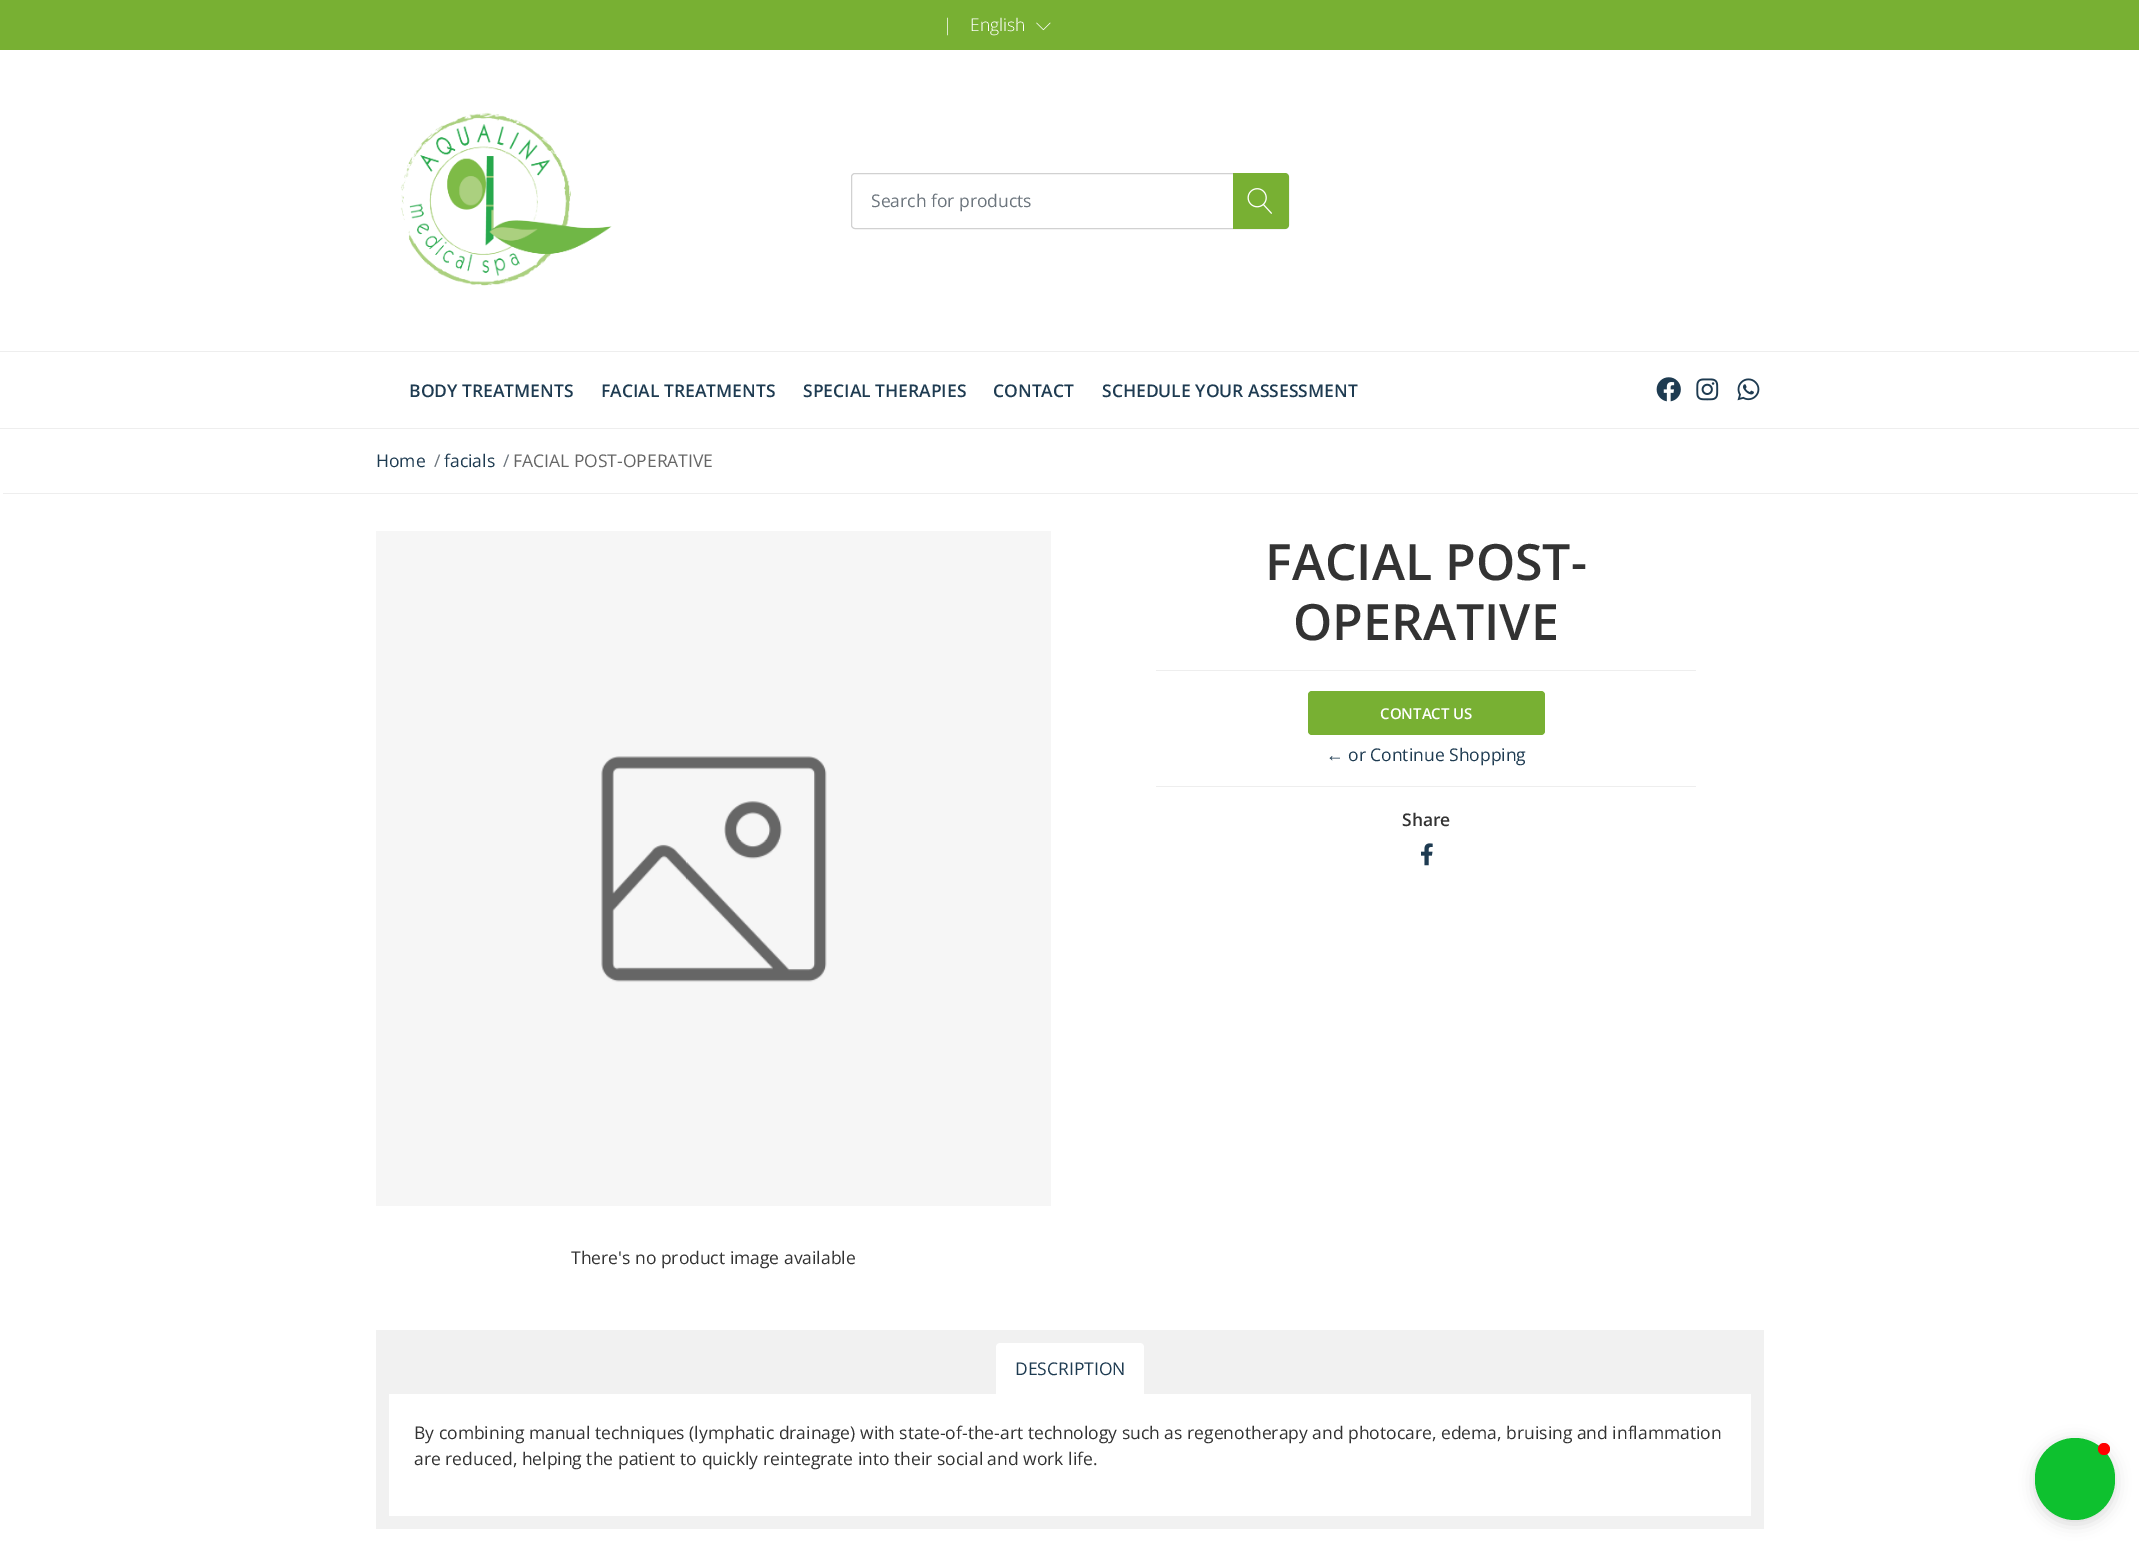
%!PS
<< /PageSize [2139 1544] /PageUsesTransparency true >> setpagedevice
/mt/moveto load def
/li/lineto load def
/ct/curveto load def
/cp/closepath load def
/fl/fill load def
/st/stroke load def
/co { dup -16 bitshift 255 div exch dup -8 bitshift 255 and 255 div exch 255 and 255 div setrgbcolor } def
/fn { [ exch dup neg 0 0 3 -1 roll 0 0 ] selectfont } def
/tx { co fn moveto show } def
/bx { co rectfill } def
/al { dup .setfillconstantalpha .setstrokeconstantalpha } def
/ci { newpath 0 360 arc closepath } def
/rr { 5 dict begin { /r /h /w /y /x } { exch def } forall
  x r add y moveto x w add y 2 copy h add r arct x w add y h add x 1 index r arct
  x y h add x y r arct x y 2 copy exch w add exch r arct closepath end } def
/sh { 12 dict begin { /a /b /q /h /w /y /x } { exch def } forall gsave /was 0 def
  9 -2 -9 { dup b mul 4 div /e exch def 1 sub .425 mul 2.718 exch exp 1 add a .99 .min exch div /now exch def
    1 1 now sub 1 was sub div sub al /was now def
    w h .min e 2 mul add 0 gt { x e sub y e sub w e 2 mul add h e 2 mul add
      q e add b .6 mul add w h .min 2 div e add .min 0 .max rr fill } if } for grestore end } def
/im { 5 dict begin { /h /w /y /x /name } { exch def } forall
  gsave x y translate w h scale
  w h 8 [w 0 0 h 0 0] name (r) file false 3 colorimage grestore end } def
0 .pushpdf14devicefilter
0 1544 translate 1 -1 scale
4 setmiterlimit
0 0 2139 1544 16#FFFFFF bx
0 0 2139 50 16#78B033 bx
(media/1.raw) 1036 22 15 9 im
(media/2.raw) 400 112 212 174 im
16#D1D1D1 co
851.5 173.5 437 55 3.5 rr st
16#78B033 co
1233 173 mt 1285 173 li 1287 173 1289 175 1289 177 ct 1289 225 li 1289 227 1287 229 1285 229 ct 1233 229 li cp fl
(media/3.raw) 1247 188 25 26 im
0 351 2139 1 16#EEEEEE bx
0 428 2139 1 16#EEEEEE bx
(media/4.raw) 1656 377 25 25 im
(media/5.raw) 1696 378 23 23 im
(media/6.raw) 1737 378 23 23 im
3 493 2135 1 16#EEEEEE bx
1156 670 540 1 16#EEEEEE bx
1156 786 540 1 16#EEEEEE bx
16#78B033 co
1308 691 237 44 4 rr fl
(media/7.raw) 1421 843 12 23 im
(media/8.raw) 376 531 675 675 im
376 1330 1388 199 16#F1F1F1 bx
16#FFFFFF co
1000 1343 mt 1140 1343 li 1142 1343 1144 1345 1144 1347 ct 1144 1394 li 996 1394 li 996 1347 li 996 1345 998 1343 1000 1343 ct cp fl
389 1394 1362 122 16#FFFFFF bx
16#000000 co
2035 1441 80 83 40 7.5 .15 sh
16#0EC12F co
2035 1438 80 82 40 rr fl
16#FF0000 co
2104 1449 6 ci fl
(|) 943 31 /OpenSans-Light 17.5 16#FFFFFF tx
(English) 970 31 /OpenSans-Light 17.5 16#FFFFFF tx
(Search for products) 871 207 /OpenSans-Regular 17.5 16#6C757D tx
(BODY TREATMENTS) 409 397 /OpenSans-SemiBold 17.5 16#1E3B51 tx
(FACIAL TREATMENTS) 601 397 /OpenSans-SemiBold 17.5 16#1E3B51 tx
(SPECIAL THERAPIES) 803 397 /OpenSans-SemiBold 17.5 16#1E3B51 tx
(CONTACT) 993 397 /OpenSans-SemiBold 17.5 16#1E3B51 tx
(SCHEDULE YOUR ASSESSMENT) 1102 397 /OpenSans-SemiBold 17.5 16#1E3B51 tx
(Home) 376 467 /OpenSans-Regular 17.5 16#1E3B51 tx
(/) 434 467 /OpenSans-Regular 17.5 16#6C757D tx
(facials) 444 467 /OpenSans-Regular 17.5 16#1E3B51 tx
(/) 503 467 /OpenSans-Regular 17.5 16#6C757D tx
(FACIAL POST-OPERATIVE) 513 467 /OpenSans-Regular 17.5 16#666666 tx
(FACIAL POST-) 1265 580 /OpenSans-SemiBold 50 16#333333 tx
(OPERATIVE) 1293 640 /OpenSans-SemiBold 50 16#333333 tx
(CONTACT US) 1380 719 /OpenSans-SemiBold 15 16#FFFFFF tx
(←) 1326 761 /LiberationSerif-Regular 17.5 16#1E3B51 tx
(or Continue Shopping) 1348 761 /OpenSans-Regular 17.5 16#1E3B51 tx
(Share) 1402 826 /OpenSans-SemiBold 17.5 16#333333 tx
(There's no product image available) 571 1264 /OpenSans-Regular 17.5 16#333333 tx
(DESCRIPTION) 1015 1375 /OpenSans-Regular 17.5 16#1E3B51 tx
(By combining manual techniques \(lymphatic drainage\) with state-of-the-art technology such as regenotherapy and photocare, edema, bruising and inflammation) 414 1439 /OpenSans-Regular 17.5 16#333333 tx
(are reduced, helping the patient to quickly reintegrate into their social and work life.) 414 1465 /OpenSans-Regular 17.5 16#333333 tx
.poppdf14devicefilter showpage
